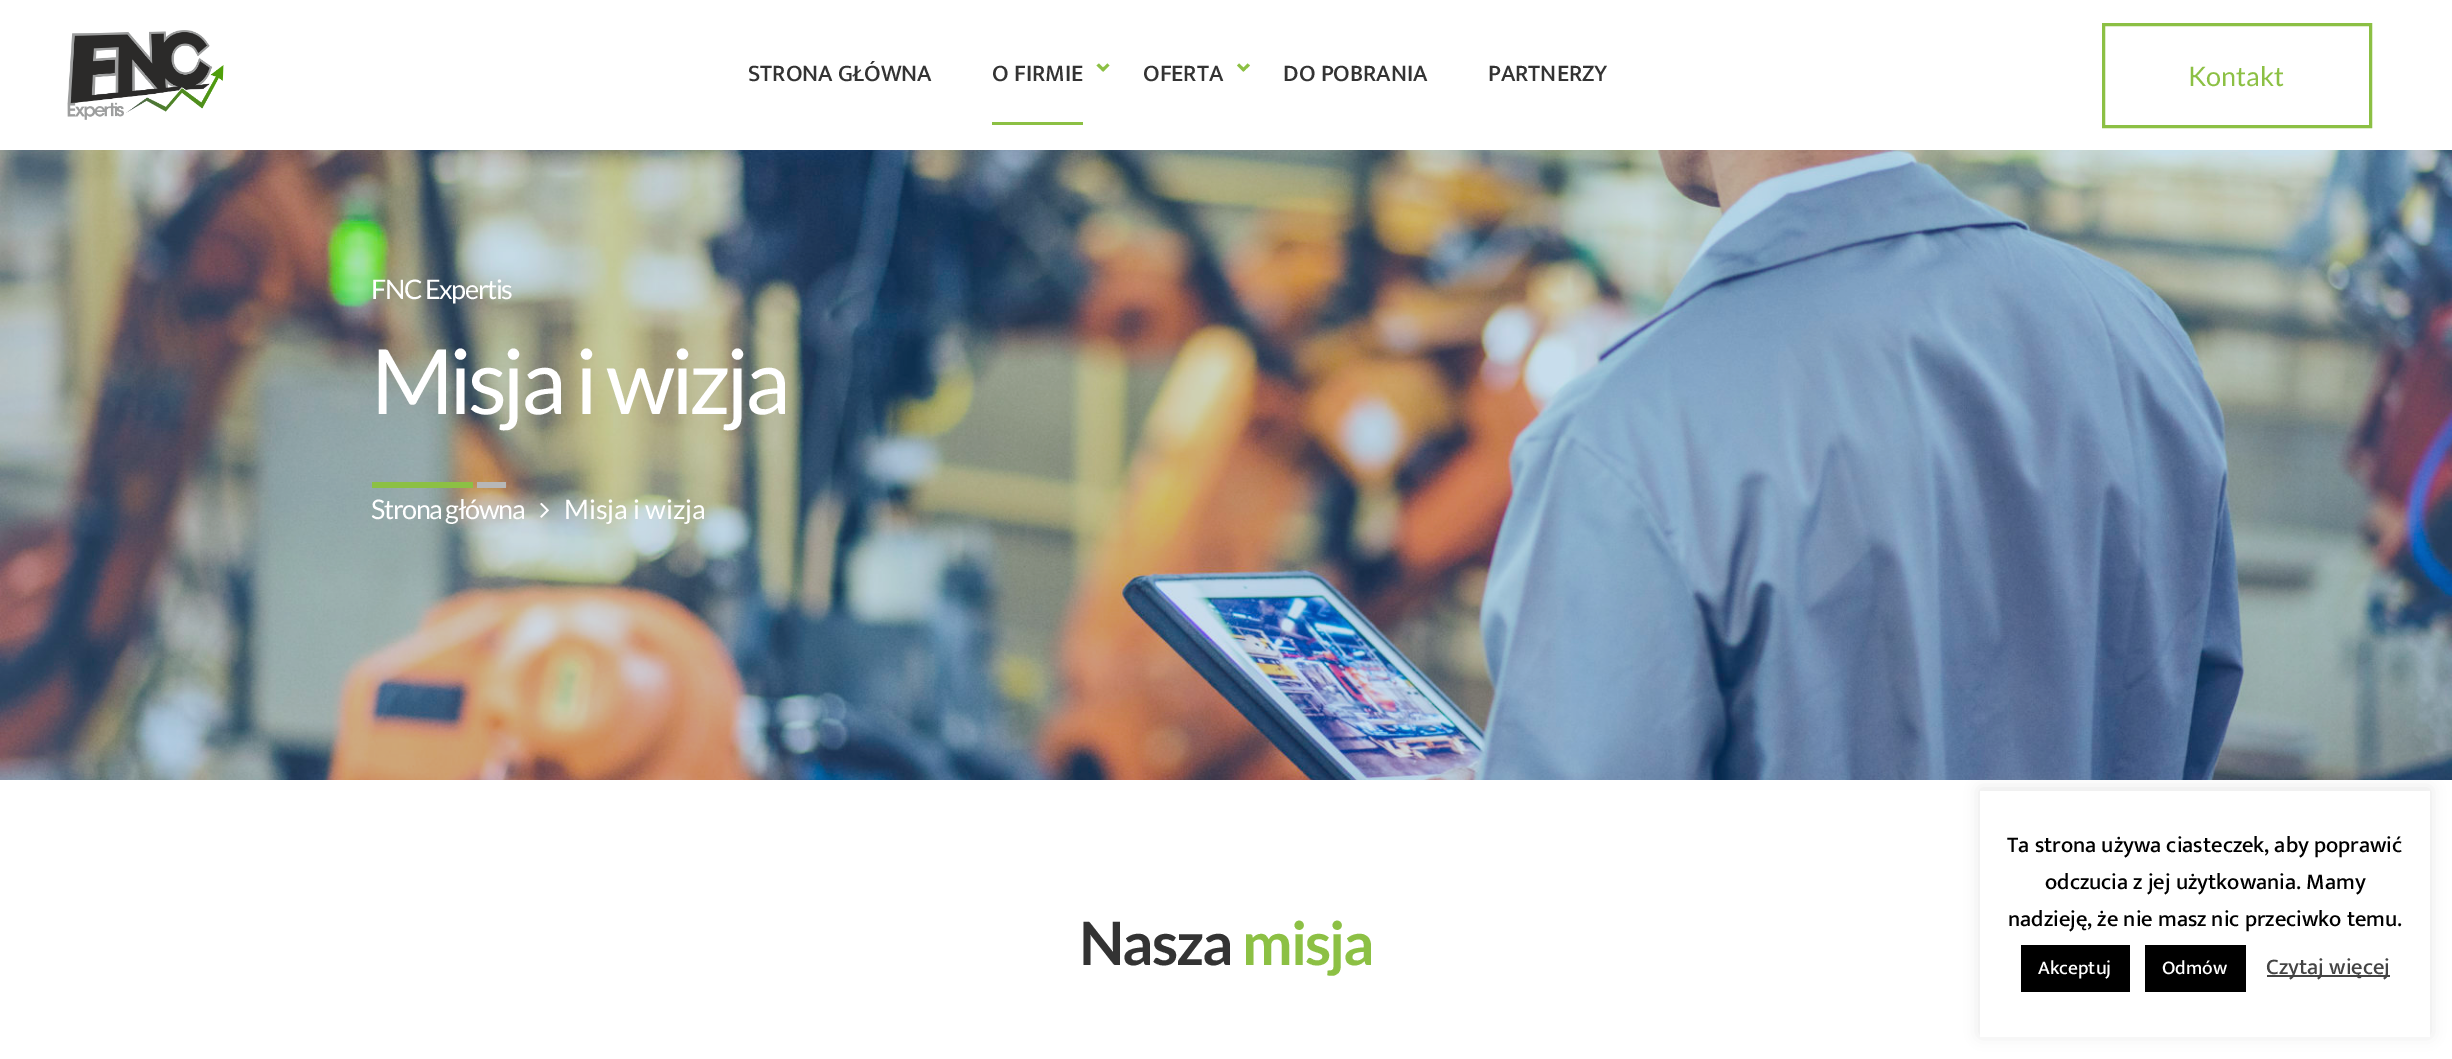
%!PS
<< /PageSize [2452 1059] /PageUsesTransparency true >> setpagedevice
/mt/moveto load def
/li/lineto load def
/cp/closepath load def
/fl/fill load def
/lw/setlinewidth load def
/co { dup -16 bitshift 255 div exch dup -8 bitshift 255 and 255 div exch 255 and 255 div setrgbcolor } def
/fn { [ exch dup neg 0 0 3 -1 roll 0 0 ] selectfont } def
/tx { co fn moveto show } def
/bx { co rectfill } def
/al { dup .setfillconstantalpha .setstrokeconstantalpha } def
/rr { 5 dict begin { /r /h /w /y /x } { exch def } forall
  x r add y moveto x w add y 2 copy h add r arct x w add y h add x 1 index r arct
  x y h add x y r arct x y 2 copy exch w add exch r arct closepath end } def
/sh { 12 dict begin { /a /b /q /h /w /y /x } { exch def } forall gsave /was 0 def
  9 -2 -9 { dup b mul 4 div /e exch def 1 sub .425 mul 2.718 exch exp 1 add a .99 .min exch div /now exch def
    1 1 now sub 1 was sub div sub al /was now def
    w h .min e 2 mul add 0 gt { x e sub y e sub w e 2 mul add h e 2 mul add
      q e add b .6 mul add w h .min 2 div e add .min 0 .max rr fill } if } for grestore end } def
/im { 5 dict begin { /h /w /y /x /name } { exch def } forall
  gsave x y translate w h scale
  w h 8 [w 0 0 h 0 0] name (r) file false 3 colorimage grestore end } def
0 .pushpdf14devicefilter
0 1059 translate 1 -1 scale
4 setmiterlimit
0 0 2452 1059 16#FFFFFF bx
(media/1.raw) 67 30 157 90 im
16#8CC044 co
1099 63.5 mt 1105 69.5 li 1103 71.5 li 1096.5 65.5 li cp fl
1101 69.5 mt 1107.5 63.5 li 1109.5 65.5 li 1103.5 71.5 li cp fl
992 122 91 3 16#8CC044 bx
1239 63.5 mt 1245.5 69.5 li 1243 71.5 li 1237 65.5 li cp fl
1241.5 69.5 mt 1247.5 63.5 li 1250 65.5 li 1243.5 71.5 li cp fl
3 lw
2103.5 24.5 267 102 rectstroke
(media/2.raw) 0 150 2452 630 im
372 482 101 6 16#8CC044 bx
477 482 29 6 16#B7B7B7 bx
(media/3.raw) 540 502 9 16 im
16#ACABAB co
1980 789 450 246 0 7.5 .3 sh
1980 791 450 246 16#FFFFFF bx
2021 945 109 47 16#000000 bx
2145 945 101 47 16#000000 bx
2267 975 123 2 16#444444 bx
(STRONA GŁÓWNA) 748 81 /Mukta-Medium 24 16#333333 tx
(O FIRMIE) 992 81 /Mukta-Medium 24 16#333333 tx
(OFERTA) 1143 81 /Mukta-Medium 24 16#333333 tx
(DO POBRANIA) 1283 81 /Mukta-Medium 24 16#333333 tx
(PARTNERZY) 1488 81 /Mukta-Medium 24 16#333333 tx
(Kontakt) 2188 86 /Lato-Regular 27 16#8CC044 tx
16#FFFFFF co
371 299 mt -1.4 0 (FNC Expertis) ashow
/Lato-Regular 90 fn
371 414 mt -4.5 0 (Misja i wizja) ashow
/Lato-Regular 27 fn
371 519 mt -1.4 0 (Strona główna) ashow
(Misja i wizja) 564 519 /Lato-Regular 27 16#FFFFFF tx
/Lato-Bold 60 fn
16#333333 co
1079 965 mt -2 0 (Nasza) ashow
16#8CC044 co
1242 965 mt -2 0 (misja) ashow
(Ta strona używa ciasteczek, aby poprawić) 2007 852 /Mukta-Medium 22.5 16#000000 tx
(odczucia z jej użytkowania. Mamy) 2045 889 /Mukta-Medium 22.5 16#000000 tx
(nadzieję, że nie masz nic przeciwko temu.) 2008 926 /Mukta-Medium 22.5 16#000000 tx
(Akceptuj) 2038 974 /Mukta-Medium 19.5 16#FFFFFF tx
(Odmów) 2162 974 /Mukta-Medium 19.5 16#FFFFFF tx
(Czytaj więcej) 2266 974 /Mukta-Medium 22.5 16#444444 tx
.poppdf14devicefilter showpage
